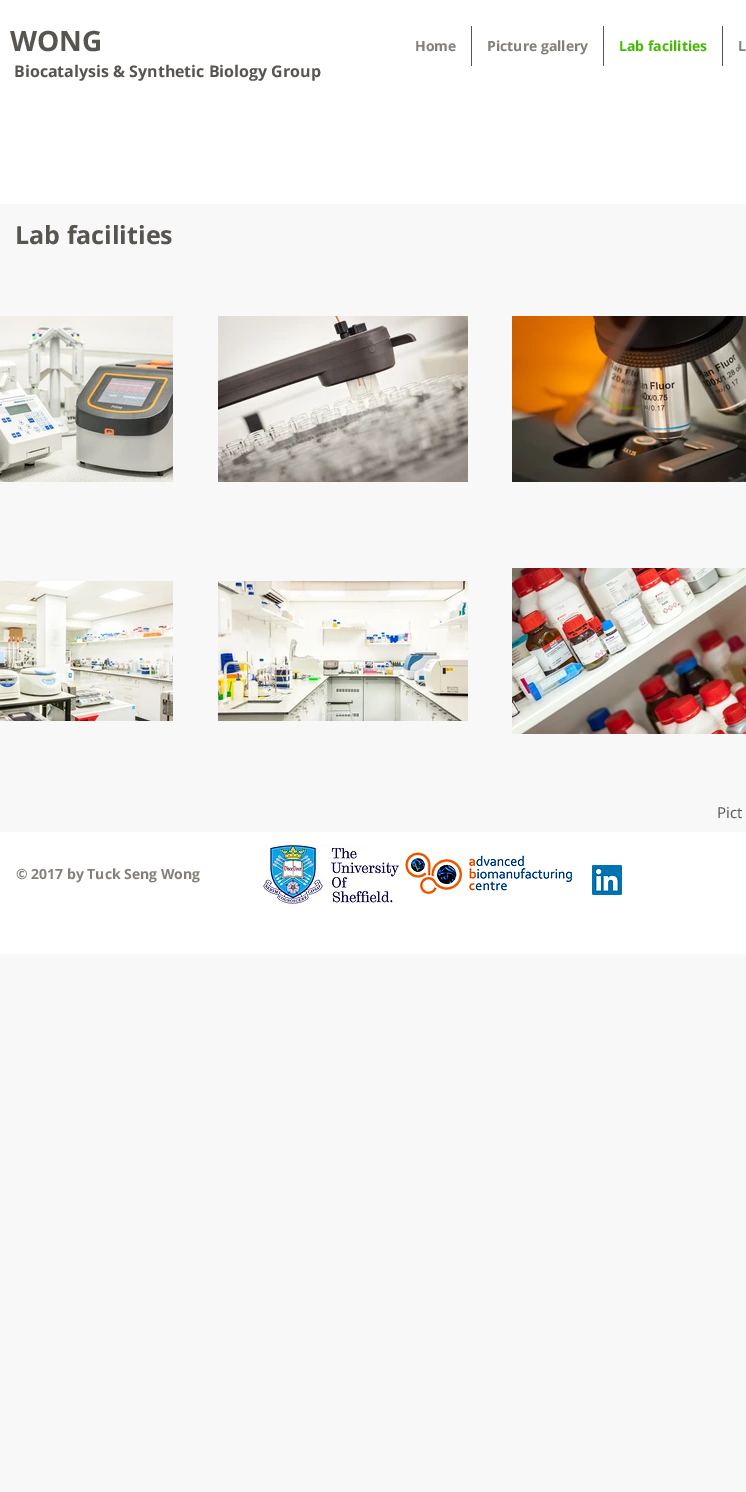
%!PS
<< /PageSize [746 1492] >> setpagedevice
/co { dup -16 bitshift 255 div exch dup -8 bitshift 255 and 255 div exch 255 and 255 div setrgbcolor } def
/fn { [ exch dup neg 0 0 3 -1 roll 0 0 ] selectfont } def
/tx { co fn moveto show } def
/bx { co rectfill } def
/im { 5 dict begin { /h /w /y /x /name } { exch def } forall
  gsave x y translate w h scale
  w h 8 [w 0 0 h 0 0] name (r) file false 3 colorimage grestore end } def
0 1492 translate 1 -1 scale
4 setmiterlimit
0 0 746 1492 16#F8F8F8 bx
0 0 746 204 16#FFFFFF bx
471 26 1 40 16#585551 bx
603 26 1 40 16#585551 bx
722 26 1 40 16#585551 bx
(media/1.raw) 0 316 173 166 im
(media/2.raw) 218 316 250 166 im
(media/3.raw) 512 316 234 166 im
(media/4.raw) 0 581 173 140 im
(media/5.raw) 218 581 250 140 im
(media/6.raw) 512 568 234 166 im
0 832 746 122 16#FFFFFF bx
(media/7.raw) 262 844 137 61 im
(media/8.raw) 405 852 167 43 im
(media/9.raw) 592 865 30 30 im
(WONG) 10 51 /OpenSans-Bold 28 16#585551 tx
(Biocatalysis & Synthetic Biology Group) 14 77 /OpenSans-Bold 16 16#585551 tx
(Home) 415 51 /OpenSans-Bold 14 16#848079 tx
(Picture gallery) 487 51 /OpenSans-Bold 14 16#848079 tx
(Lab facilities) 619 51 /OpenSans-Bold 14 16#45BA01 tx
(L) 738 51 /OpenSans-Bold 14 16#848079 tx
(Lab facilities) 15 244 /OpenSans-Bold 25 16#585551 tx
(Pict) 717 818 /OpenSans-Regular 15 16#585551 tx
(© 2017 by Tuck Seng Wong) 16 879 /OpenSans-Bold 14 16#848079 tx
showpage
